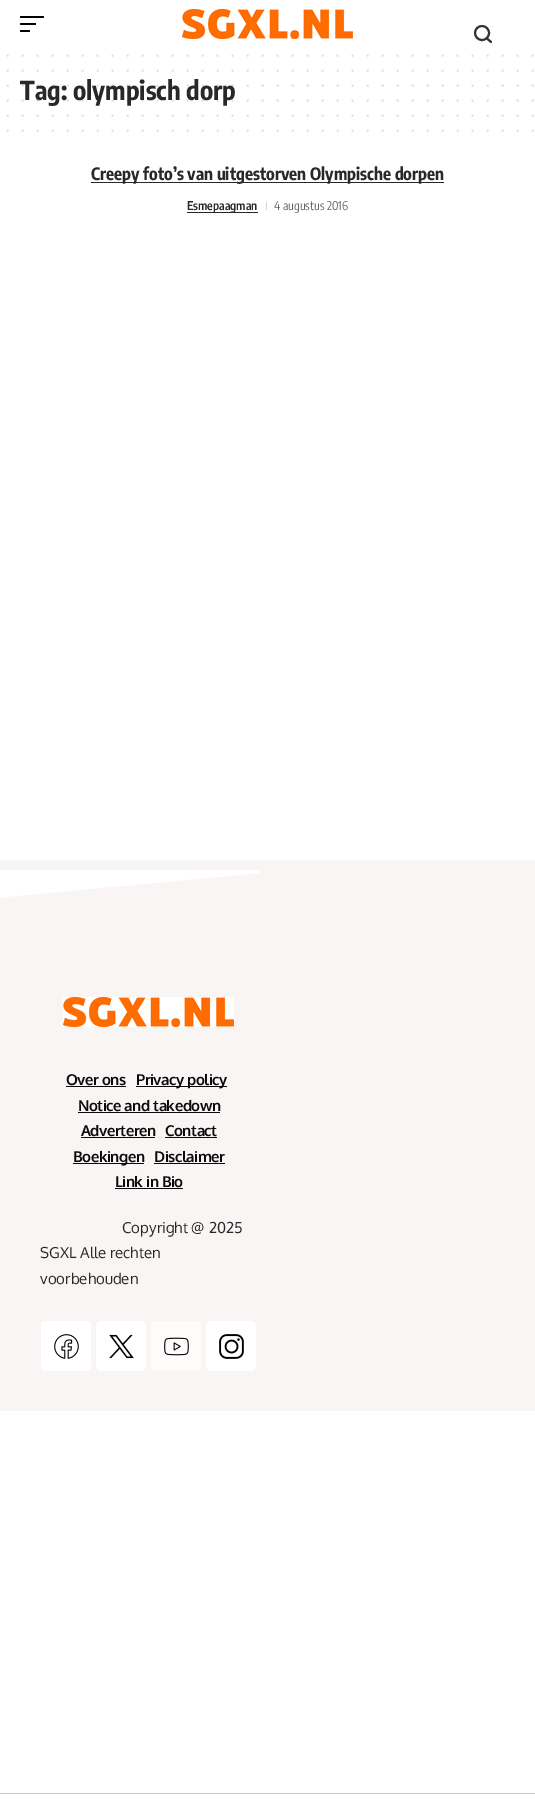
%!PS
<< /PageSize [535 1804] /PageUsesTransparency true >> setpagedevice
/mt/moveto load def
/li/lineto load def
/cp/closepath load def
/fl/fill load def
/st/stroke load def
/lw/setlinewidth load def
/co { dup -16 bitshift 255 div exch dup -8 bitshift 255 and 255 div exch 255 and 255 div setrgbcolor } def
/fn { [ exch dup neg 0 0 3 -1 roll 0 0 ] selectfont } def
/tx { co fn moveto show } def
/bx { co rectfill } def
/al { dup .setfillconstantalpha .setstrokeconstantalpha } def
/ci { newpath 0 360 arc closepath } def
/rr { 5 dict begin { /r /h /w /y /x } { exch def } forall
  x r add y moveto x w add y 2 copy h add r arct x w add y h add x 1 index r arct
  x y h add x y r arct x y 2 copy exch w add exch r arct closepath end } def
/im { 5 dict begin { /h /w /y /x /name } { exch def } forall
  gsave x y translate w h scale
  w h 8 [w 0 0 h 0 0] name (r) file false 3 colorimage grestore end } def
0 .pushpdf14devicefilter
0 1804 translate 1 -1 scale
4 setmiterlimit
0 0 535 1804 16#FFFFFF bx
16#333333 co
2 lw
482 33 7 ci st
1 setlinecap
487 38.5 mt 491 42 li st
16#000000 co
20 16 24 2 1 rr fl
20 23 16 2 1 rr fl
20 30 10 2 1 rr fl
(media/1.raw) 182 9 171 30 im
16#DFDFDF co
[0 15] 0 setdash
7.5 55.5 mt 532.7 55.5 li st
7.5 70.5 mt 532.7 70.5 li st
7.5 115.5 mt 532.7 115.5 li st
7.5 130.5 mt 532.7 130.5 li st
91 182 353 1 16#282828 bx
187 212 71 1 16#282828 bx
266 202 1 8 16#D1D1D1 bx
0 860 535 551 16#FAF5F5 bx
16#FFFFFF co
260 873 mt 260 870 li -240 870 li -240 920 li cp fl
(media/1.raw) 63 997 171 30 im
66 1086 60 1 16#0A0A0A bx
136 1086 91 1 16#0A0A0A bx
78 1112 142 1 16#0A0A0A bx
81 1137 74 1 16#0A0A0A bx
165 1137 52 1 16#0A0A0A bx
73 1163 71 1 16#0A0A0A bx
154 1163 71 1 16#0A0A0A bx
115 1188 68 1 16#0A0A0A bx
16#FFFFFF co
41 1321 50 50 5 rr fl
(media/2.raw) 54 1334 25 25 im
96 1321 50 50 5 rr fl
(media/3.raw) 109 1334 25 25 im
16#FFFBFB co
151 1321 50 50 5 rr fl
(media/4.raw) 164 1337 25 19 im
16#FFFFFF co
206 1321 50 50 5 rr fl
(media/5.raw) 219 1334 25 25 im
0 1793 535 1 16#CCCCCC bx
(Tag: olympisch dorp) 20 100 /EncodeSansCondensed-Bold 26 16#282828 tx
0.15 al
7.5 100.5 mt 532.7 100.5 li st
7.5 85.5 mt 532.7 85.5 li st
1 al
(Creepy foto’s van uitgestorven Olympische dorpen) 91 180 /EncodeSansCondensed-Bold 17 16#282828 tx
(Esmepaagman) 187 210 /EncodeSansCondensed-SemiBold 12 16#282828 tx
(4 augustus 2016) 274 210 /EncodeSansCondensed-Regular 12 16#666666 tx
/Oxygen-Bold 15 fn
16#0A0A0A co
66 1085 mt -.5 0 (Over ons) ashow
136 1085 mt -.5 0 (Privacy policy) ashow
78 1111 mt -.5 0 (Notice and takedown) ashow
81 1136 mt -.5 0 (Adverteren) ashow
165 1136 mt -.5 0 (Contact) ashow
73 1162 mt -.5 0 (Boekingen) ashow
154 1162 mt -.5 0 (Disclaimer) ashow
115 1187 mt -.5 0 (Link in Bio) ashow
(Copyright @ 2025) 122 1233 /Oxygen-Regular 15 16#282828 tx
(SGXL Alle rechten) 40 1258 /Oxygen-Regular 15 16#282828 tx
(voorbehouden) 40 1284 /Oxygen-Regular 15 16#282828 tx
.poppdf14devicefilter showpage
